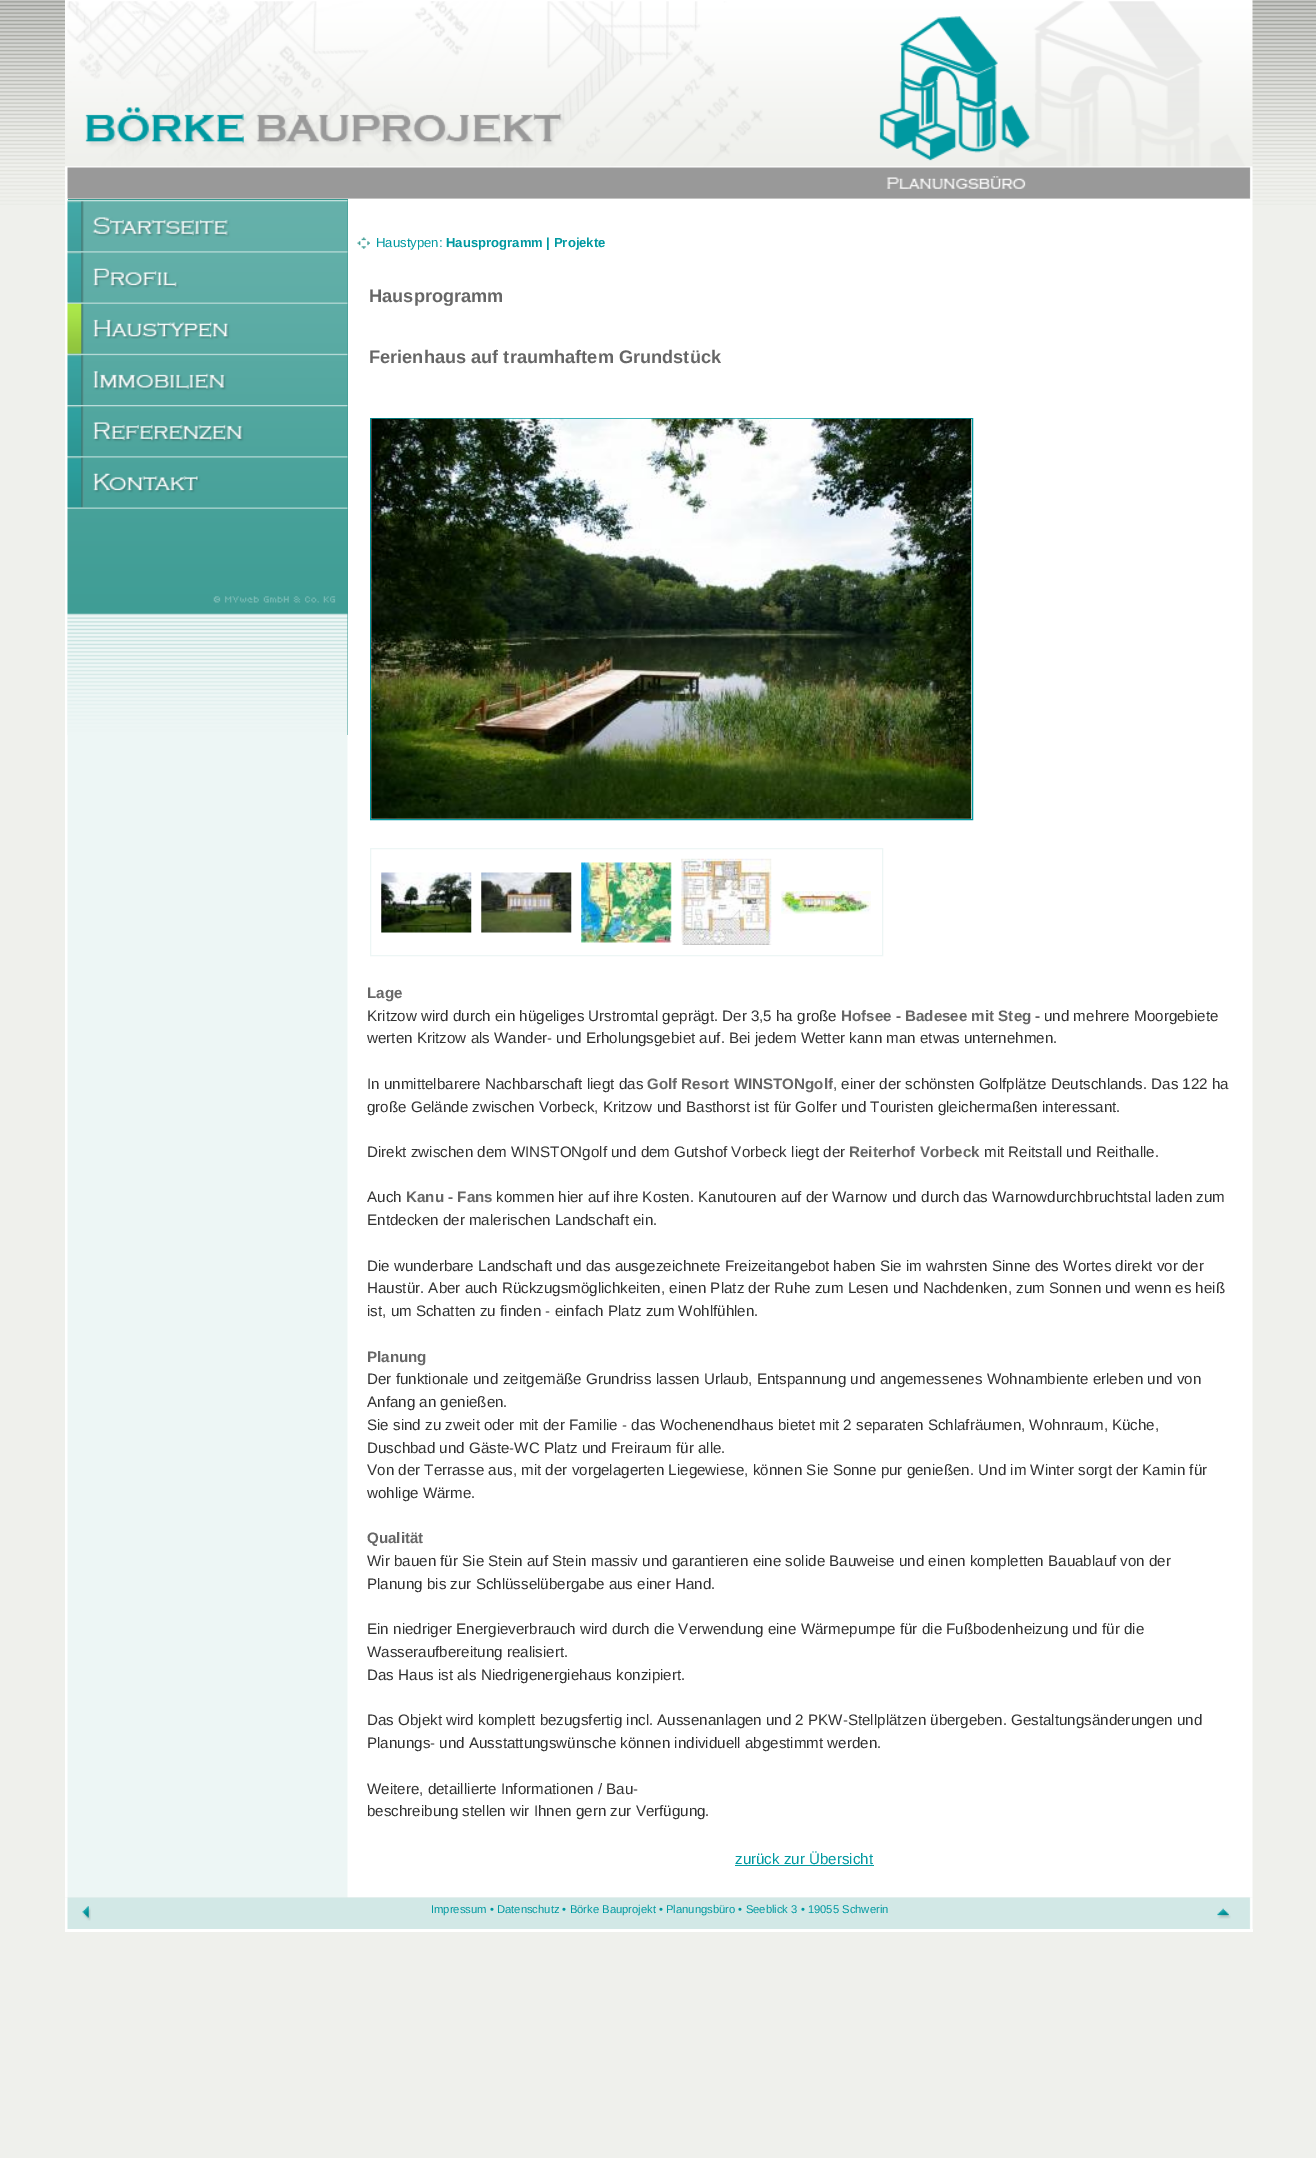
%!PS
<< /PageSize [1316 2158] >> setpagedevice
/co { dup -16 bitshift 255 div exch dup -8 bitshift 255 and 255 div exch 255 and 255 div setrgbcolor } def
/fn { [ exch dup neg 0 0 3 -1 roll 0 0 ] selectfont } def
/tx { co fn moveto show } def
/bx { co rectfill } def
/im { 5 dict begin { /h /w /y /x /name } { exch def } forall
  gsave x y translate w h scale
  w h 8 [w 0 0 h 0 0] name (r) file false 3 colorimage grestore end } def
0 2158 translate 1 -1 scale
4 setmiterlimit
0 0 1316 2158 16#EFF0EC bx
(media/1.raw) 0 0 1316 205 im
(media/2.raw) 65 0 1188 199 im
(media/3.raw) 65 198 1188 1700 im
68 199 280 536 16#389990 bx
(media/4.raw) 67 200 281 52 im
(media/5.raw) 67 251 281 52 im
(media/6.raw) 67 302 281 52 im
(media/7.raw) 67 353 281 52 im
(media/8.raw) 67 405 281 52 im
(media/9.raw) 67 456 281 52 im
(media/10.raw) 67 507 281 228 im
(media/11.raw) 357 237 13 12 im
16#0099A1 co
370.5 418.5 602 401 rectstroke
(media/12.raw) 371 418 601 401 im
16#EDF6F5 co
370.5 848.5 512 107 rectstroke
(media/13.raw) 381 872 91 61 im
(media/14.raw) 481 872 91 61 im
(media/15.raw) 581 862 91 81 im
(media/16.raw) 681 858 91 87 im
(media/17.raw) 781 891 90 23 im
735 1865 139 1 16#0099A1 bx
(media/18.raw) 65 1897 1188 32 im
65 1929 1188 3 16#FFFFFF bx
(media/19.raw) 82 1906 9 15 im
(media/20.raw) 1217 1908 14 11 im
(Haustypen:) 376 247 /LiberationSans-Regular 13.1 16#0099A1 tx
(Hausprogramm | Projekte) 446 247 /LiberationSans-Bold 13.1 16#0099A1 tx
(Hausprogramm) 369 302 /LiberationSans-Bold 18.2 16#666666 tx
(Ferienhaus auf traumhaftem Grundstück) 369 363 /LiberationSans-Bold 18.2 16#666666 tx
(Lage) 367 998 /LiberationSans-Bold 15.15 16#666666 tx
(Kritzow wird durch ein hügeliges Urstromtal geprägt. Der 3,5 ha große) 367 1021 /LiberationSans-Regular 15.15 16#333333 tx
(Hofsee - Badesee mit Steg -) 841 1021 /LiberationSans-Bold 15.15 16#666666 tx
(und mehrere Moorgebiete) 1044 1021 /LiberationSans-Regular 15.15 16#333333 tx
(werten Kritzow als Wander- und Erholungsgebiet auf. Bei jedem Wetter kann man etwas unternehmen.) 367 1043 /LiberationSans-Regular 15.15 16#333333 tx
(In unmittelbarere Nachbarschaft liegt das) 367 1089 /LiberationSans-Regular 15.15 16#333333 tx
(Golf Resort WINSTONgolf) 647 1089 /LiberationSans-Bold 15.15 16#666666 tx
(, einer der schönsten Golfplätze Deutschlands. Das 122 ha) 833 1089 /LiberationSans-Regular 15.15 16#333333 tx
(große Gelände zwischen Vorbeck, Kritzow und Basthorst ist für Golfer und Touristen gleichermaßen interessant.) 367 1112 /LiberationSans-Regular 15.15 16#333333 tx
(Direkt zwischen dem WINSTONgolf und dem Gutshof Vorbeck liegt der) 367 1157 /LiberationSans-Regular 15.15 16#333333 tx
(Reiterhof Vorbeck) 849 1157 /LiberationSans-Bold 15.15 16#666666 tx
(mit Reitstall und Reithalle.) 984 1157 /LiberationSans-Regular 15.15 16#333333 tx
(Auch) 367 1202 /LiberationSans-Regular 15.15 16#333333 tx
(Kanu - Fans) 406 1202 /LiberationSans-Bold 15.15 16#666666 tx
(kommen hier auf ihre Kosten. Kanutouren auf der Warnow und durch das Warnowdurchbruchtstal laden zum) 496 1202 /LiberationSans-Regular 15.15 16#333333 tx
(Entdecken der malerischen Landschaft ein.) 367 1225 /LiberationSans-Regular 15.15 16#333333 tx
(Die wunderbare Landschaft und das ausgezeichnete Freizeitangebot haben Sie im wahrsten Sinne des Wortes direkt vor der) 367 1271 /LiberationSans-Regular 15.15 16#333333 tx
(Haustür. Aber auch Rückzugsmöglichkeiten, einen Platz der Ruhe zum Lesen und Nachdenken, zum Sonnen und wenn es heiß) 367 1293 /LiberationSans-Regular 15.15 16#333333 tx
(ist, um Schatten zu finden - einfach Platz zum Wohlfühlen.) 367 1316 /LiberationSans-Regular 15.15 16#333333 tx
(Planung) 367 1362 /LiberationSans-Bold 15.15 16#666666 tx
(Der funktionale und zeitgemäße Grundriss lassen Urlaub, Entspannung und angemessenes Wohnambiente erleben und von) 367 1384 /LiberationSans-Regular 15.15 16#333333 tx
(Anfang an genießen.) 367 1407 /LiberationSans-Regular 15.15 16#333333 tx
(Sie sind zu zweit oder mit der Familie - das Wochenendhaus bietet mit 2 separaten Schlafräumen, Wohnraum, Küche,) 367 1430 /LiberationSans-Regular 15.15 16#333333 tx
(Duschbad und Gäste-WC Platz und Freiraum für alle.) 367 1453 /LiberationSans-Regular 15.15 16#333333 tx
(Von der Terrasse aus, mit der vorgelagerten Liegewiese, können Sie Sonne pur genießen. Und im Winter sorgt der Kamin für) 367 1475 /LiberationSans-Regular 15.15 16#333333 tx
(wohlige Wärme.) 367 1498 /LiberationSans-Regular 15.15 16#333333 tx
(Qualität) 367 1543 /LiberationSans-Bold 15.15 16#666666 tx
(Wir bauen für Sie Stein auf Stein massiv und garantieren eine solide Bauweise und einen kompletten Bauablauf von der) 367 1566 /LiberationSans-Regular 15.15 16#333333 tx
(Planung bis zur Schlüsselübergabe aus einer Hand.) 367 1589 /LiberationSans-Regular 15.15 16#333333 tx
(Ein niedriger Energieverbrauch wird durch die Verwendung eine Wärmepumpe für die Fußbodenheizung und für die) 367 1634 /LiberationSans-Regular 15.15 16#333333 tx
(Wasseraufbereitung realisiert.) 367 1657 /LiberationSans-Regular 15.15 16#333333 tx
(Das Haus ist als Niedrigenergiehaus konzipiert.) 367 1680 /LiberationSans-Regular 15.15 16#333333 tx
(Das Objekt wird komplett bezugsfertig incl. Aussenanlagen und 2 PKW-Stellplätzen übergeben. Gestaltungsänderungen und) 367 1725 /LiberationSans-Regular 15.15 16#333333 tx
(Planungs- und Ausstattungswünsche können individuell abgestimmt werden.) 367 1748 /LiberationSans-Regular 15.15 16#333333 tx
(Weitere, detaillierte Informationen / Bau-) 367 1794 /LiberationSans-Regular 15.15 16#333333 tx
(beschreibung stellen wir Ihnen gern zur Verfügung.) 367 1816 /LiberationSans-Regular 15.15 16#333333 tx
(zurück zur Übersicht) 735 1864 /LiberationSans-Regular 15.15 16#0099A1 tx
(Impressum • Datenschutz • Börke Bauprojekt • Planungsbüro • Seeblick 3 • 19055 Schwerin) 431 1913 /LiberationSans-Regular 11.25 16#0099A1 tx
showpage
